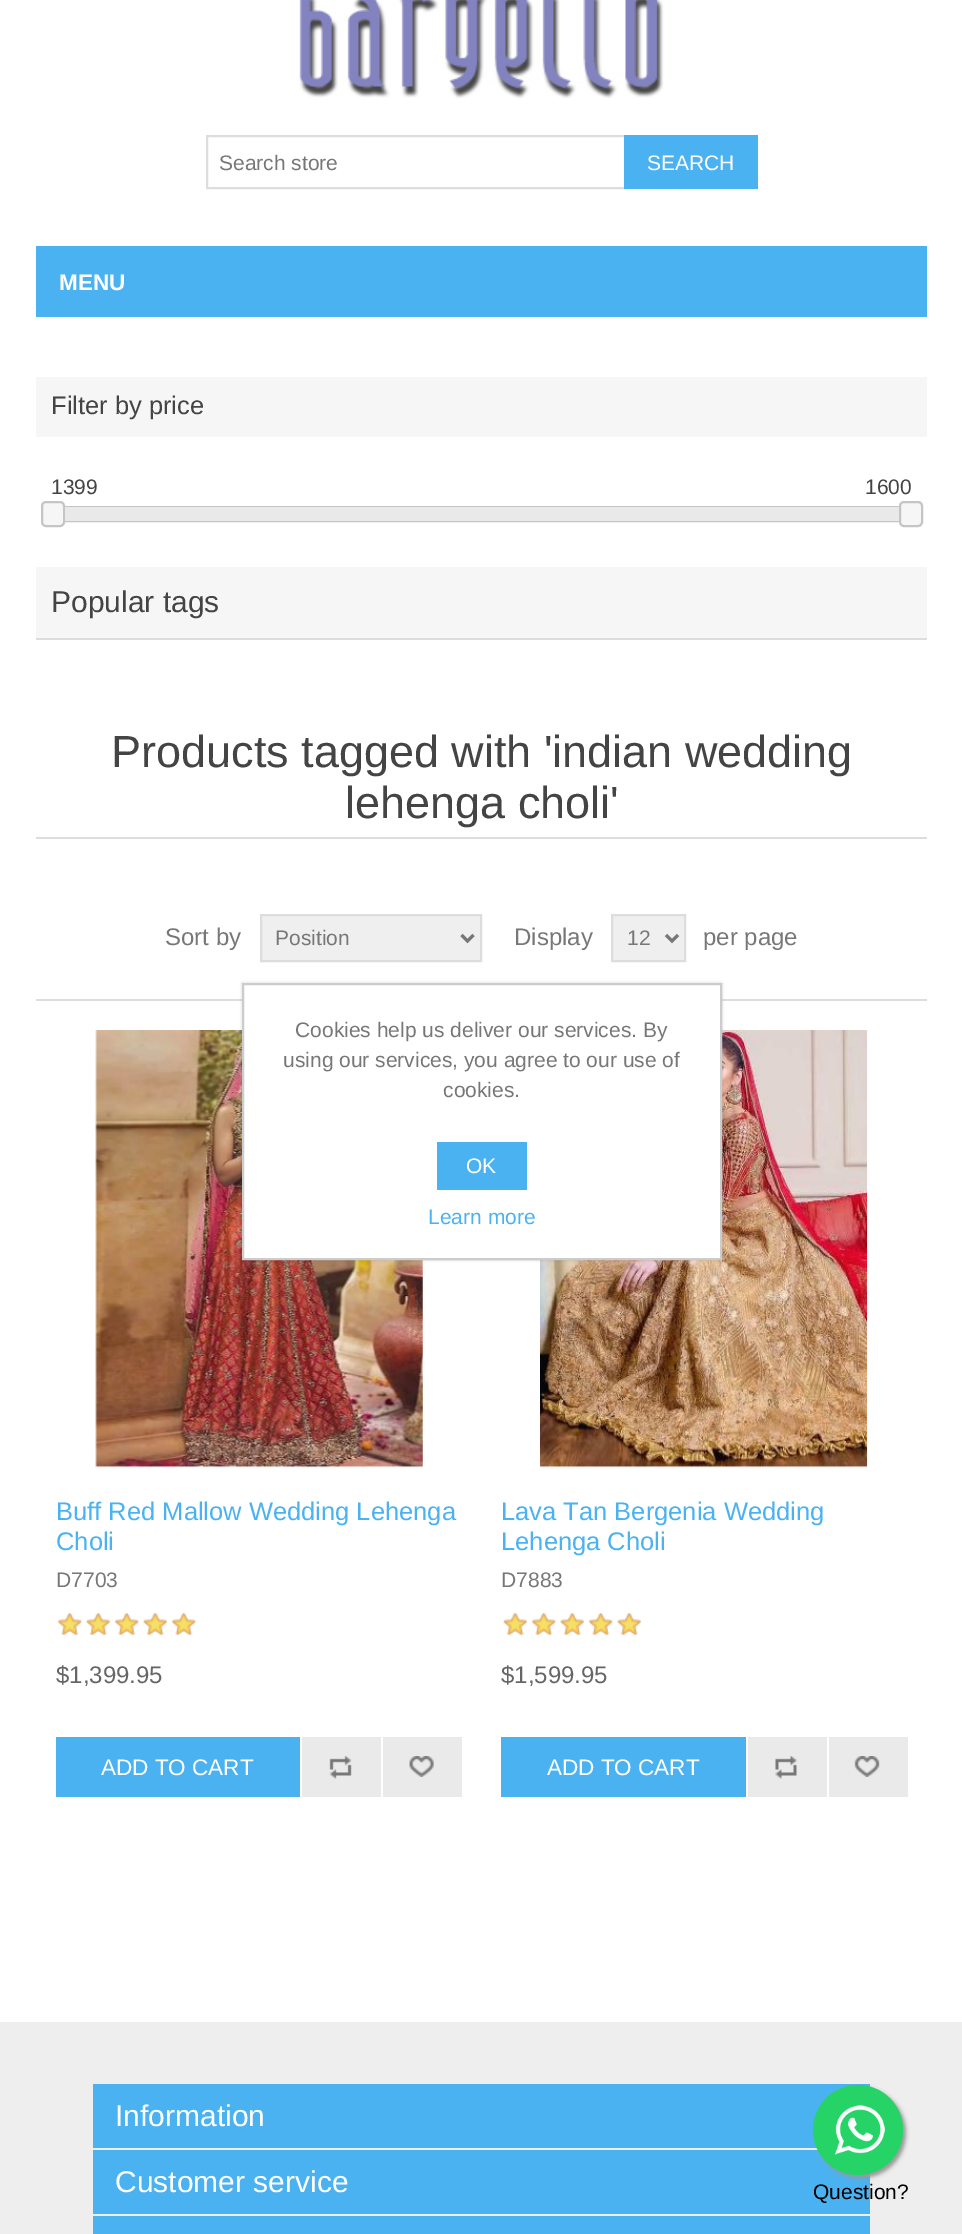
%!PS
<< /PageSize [962 2234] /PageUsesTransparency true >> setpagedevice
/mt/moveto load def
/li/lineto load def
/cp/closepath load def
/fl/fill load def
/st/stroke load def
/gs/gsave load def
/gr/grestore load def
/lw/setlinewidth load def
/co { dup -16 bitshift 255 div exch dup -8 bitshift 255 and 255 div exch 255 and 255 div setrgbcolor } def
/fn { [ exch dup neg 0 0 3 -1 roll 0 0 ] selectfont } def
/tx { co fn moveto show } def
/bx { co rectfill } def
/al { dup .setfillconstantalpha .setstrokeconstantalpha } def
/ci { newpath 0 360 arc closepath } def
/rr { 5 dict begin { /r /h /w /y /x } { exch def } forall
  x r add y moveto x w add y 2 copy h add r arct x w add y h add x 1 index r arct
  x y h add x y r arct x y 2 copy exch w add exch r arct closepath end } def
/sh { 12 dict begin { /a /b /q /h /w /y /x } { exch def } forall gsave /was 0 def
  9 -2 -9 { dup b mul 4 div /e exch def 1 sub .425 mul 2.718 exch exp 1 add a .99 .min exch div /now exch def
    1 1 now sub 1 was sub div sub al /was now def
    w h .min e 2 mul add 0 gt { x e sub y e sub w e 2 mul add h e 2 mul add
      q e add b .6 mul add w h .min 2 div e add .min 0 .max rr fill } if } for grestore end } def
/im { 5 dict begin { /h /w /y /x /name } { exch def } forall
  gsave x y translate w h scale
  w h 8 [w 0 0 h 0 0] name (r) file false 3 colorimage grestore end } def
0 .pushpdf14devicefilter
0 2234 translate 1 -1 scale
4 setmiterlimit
0 0 962 2234 16#FFFFFF bx
(media/1.raw) 299 0 365 99 im
16#DDDDDD co
2 lw
207 136 418 52 rectstroke
624 135 134 54 16#4AB2F1 bx
36 246 891 71 16#4AB2F1 bx
36 377 891 60 16#F6F6F6 bx
16#C5C5C5 co
52 507 859 14 rectstroke
16#F6F6F6 co
42 502 22 24 4 rr gs fl gr
16#C5C5C5 co
st
65 507 834 14 16#E9E9E9 bx
16#F6F6F6 co
900 502 22 24 4 rr gs fl gr
16#C5C5C5 co
st
36 567 891 71 16#F6F6F6 bx
36 638 891 2 16#DDDDDD bx
36 837 891 2 16#DDDDDD bx
36 999 891 2 16#DDDDDD bx
16#EFEFEF co
261 915 mt 481 915 li 481 961 li 261 961 li cp gs fl gr
16#DDDDDD co
st
16#777777 co
3 lw
461.5 935 mt 467.5 941 li 473.5 935 li st
16#EFEFEF co
612 915 mt 685 915 li 685 961 li 612 961 li cp gs fl gr
16#DDDDDD co
2 lw
st
16#777777 co
3 lw
666 935 mt 672 941 li 678 935 li st
(media/2.raw) 95 1030 328 438 im
(media/3.raw) 58 1613 138 22 im
(media/4.raw) 58 1613 138 22 im
56 1737 244 60 16#4AB2F1 bx
302 1737 79 60 16#EAEAEA bx
(media/5.raw) 329 1756 23 23 im
383 1737 79 60 16#EAEAEA bx
(media/6.raw) 409 1756 25 21 im
(media/7.raw) 540 1030 328 438 im
(media/8.raw) 503 1613 138 22 im
(media/9.raw) 503 1613 138 22 im
501 1737 245 60 16#4AB2F1 bx
748 1737 79 60 16#EAEAEA bx
(media/10.raw) 775 1756 22 23 im
829 1737 79 60 16#EAEAEA bx
(media/11.raw) 854 1756 26 21 im
0 2022 962 212 16#EEEEEE bx
93 2084 777 64 16#4AB2F1 bx
93 2150 777 64 16#4AB2F1 bx
93 2216 777 18 16#4AB2F1 bx
16#999999 co
816 2088 90 90 45 2 1 sh
16#25D366 co
858 2130 45 ci fl
(media/12.raw) 834 2105 51 50 im
16#000000 co
242 983 480 277 0 1.5 .15 sh
16#FFFFFF co
243 984 mt 721 984 li 721 1259 li 243 1259 li cp gs fl gr
16#CCCCCC co
2 lw
st
437 1142 90 48 16#4AB2F1 bx
(Search store) 219 170 /LiberationSans-Regular 21 16#777777 tx
(SEARCH) 647 170 /LiberationSans-Regular 21 16#FFFFFF tx
(MENU) 59 290 /LiberationSans-Bold 22.5 16#FFFFFF tx
(Filter by price) 51 414 /LiberationSans-Regular 25.5 16#444444 tx
(1399) 51 494 /LiberationSans-Regular 21 16#444444 tx
(1600) 865 494 /LiberationSans-Regular 21 16#444444 tx
(Popular tags) 51 612 /LiberationSans-Regular 30 16#444444 tx
(Products tagged with 'indian wedding) 111 767 /LiberationSans-Regular 45 16#444444 tx
(lehenga choli') 345 818 /LiberationSans-Regular 45 16#444444 tx
(Sort by) 165 945 /LiberationSans-Regular 24 16#777777 tx
(Position) 275 945 /LiberationSans-Regular 21 16#777777 tx
(Display) 514 945 /LiberationSans-Regular 24 16#777777 tx
(12) 627 945 /LiberationSans-Regular 21 16#777777 tx
(per page) 703 945 /LiberationSans-Regular 24 16#777777 tx
(Buff Red Mallow Wedding Lehenga) 56 1520 /LiberationSans-Regular 25.5 16#4AB2F1 tx
(Choli) 56 1550 /LiberationSans-Regular 25.5 16#4AB2F1 tx
(D7703) 56 1587 /LiberationSans-Regular 21 16#777777 tx
($1,399.95) 56 1683 /LiberationSans-Regular 24 16#666666 tx
(ADD TO CART) 101 1775 /LiberationSans-Regular 22.5 16#FFFFFF tx
(Lava Tan Bergenia Wedding) 501 1520 /LiberationSans-Regular 25.5 16#4AB2F1 tx
(Lehenga Choli) 501 1550 /LiberationSans-Regular 25.5 16#4AB2F1 tx
(D7883) 501 1587 /LiberationSans-Regular 21 16#777777 tx
($1,599.95) 501 1683 /LiberationSans-Regular 24 16#666666 tx
(ADD TO CART) 547 1775 /LiberationSans-Regular 22.5 16#FFFFFF tx
(Information) 115 2126 /LiberationSans-Regular 30 16#FFFFFF tx
(Customer service) 115 2192 /LiberationSans-Regular 30 16#FFFFFF tx
(Question?) 813 2199 /LiberationSans-Regular 21 16#000000 tx
(Cookies help us deliver our services. By) 295 1037 /LiberationSans-Regular 21 16#777777 tx
(using our services, you agree to our use of) 283 1067 /LiberationSans-Regular 21 16#777777 tx
(cookies.) 443 1097 /LiberationSans-Regular 21 16#777777 tx
(OK) 466 1173 /LiberationSans-Regular 21 16#FFFFFF tx
(Learn more) 428 1224 /LiberationSans-Regular 21 16#4AB2F1 tx
.poppdf14devicefilter showpage
